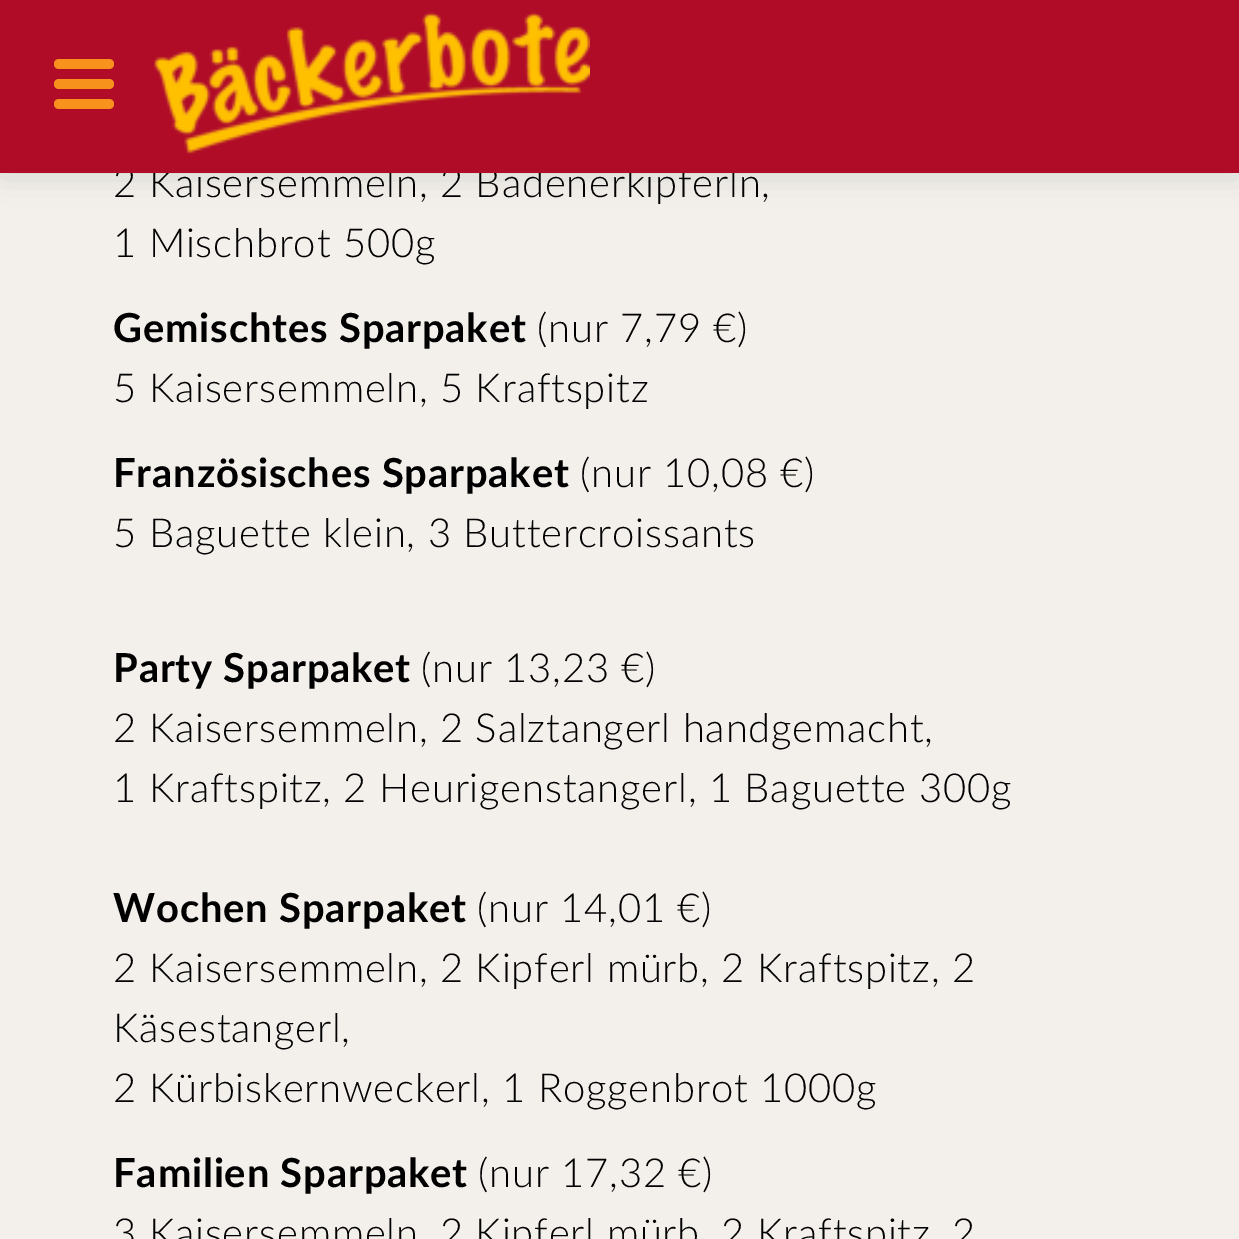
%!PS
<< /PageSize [1239 1239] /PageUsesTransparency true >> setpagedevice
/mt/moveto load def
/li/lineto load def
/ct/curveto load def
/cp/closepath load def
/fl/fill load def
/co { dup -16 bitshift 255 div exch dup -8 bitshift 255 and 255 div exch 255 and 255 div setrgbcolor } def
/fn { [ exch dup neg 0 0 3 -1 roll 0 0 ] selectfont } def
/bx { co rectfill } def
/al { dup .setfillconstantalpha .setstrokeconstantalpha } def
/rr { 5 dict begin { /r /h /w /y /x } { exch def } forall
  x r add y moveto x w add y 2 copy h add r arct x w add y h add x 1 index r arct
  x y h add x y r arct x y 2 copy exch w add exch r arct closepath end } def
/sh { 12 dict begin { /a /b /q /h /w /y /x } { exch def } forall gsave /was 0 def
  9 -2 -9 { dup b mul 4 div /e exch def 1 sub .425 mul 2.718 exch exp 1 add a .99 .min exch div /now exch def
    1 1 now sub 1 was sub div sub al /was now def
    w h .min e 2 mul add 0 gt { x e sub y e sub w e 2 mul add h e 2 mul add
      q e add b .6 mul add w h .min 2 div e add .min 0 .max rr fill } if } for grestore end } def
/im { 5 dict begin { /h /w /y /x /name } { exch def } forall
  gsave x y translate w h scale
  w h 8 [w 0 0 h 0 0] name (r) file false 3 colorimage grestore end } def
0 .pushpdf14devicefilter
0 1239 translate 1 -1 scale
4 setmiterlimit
0 0 1239 1239 16#F3F0EB bx
16#000000 co
3 3 1235 167 0 16 .17 sh
/Lato-Light 40 fn
113 197 mt .8 0 (2 Kaisersemmeln, 2 Badenerkipferln,) ashow
0 0 1239 173 16#B00C28 bx
(media/1.raw) 154 12 436 142 im
16#F7931D co
109 89 mt 59 89 li 56 89 54 87 54 84 ct 54 81 56 79 59 79 ct 109 79 li 112 79 114 81 114 84 ct 114 87 112 89 109 89 ct cp 109 109 mt 59 109 li 56 109 54 107 54 104 ct 54 101 56 99 59 99 ct 109 99 li 112 99 114 101 114 104 ct 114 107 112 109 109 109 ct cp 109 69 mt 59 69 li 56 69 54 67 54 64 ct 54 61 56 59 59 59 ct 109 59 li 112 59 114 61 114 64 ct 114 67 112 69 109 69 ct cp fl
16#000000 co
113 257 mt .8 0 (1 Mischbrot 500g) ashow
/Lato-Bold 40 fn
113 342 mt .8 0 (Gemischtes Sparpaket) ashow
/Lato-Light 40 fn
537 342 mt .8 0 (\(nur 7,79 €\)) ashow
113 402 mt .8 0 (5 Kaisersemmeln, 5 Kraftspitz) ashow
/Lato-Bold 40 fn
113 487 mt .8 0 (Französisches Sparpaket) ashow
/Lato-Light 40 fn
580 487 mt .8 0 (\(nur 10,08 €\)) ashow
113 547 mt .8 0 (5 Baguette klein, 3 Buttercroissants) ashow
/Lato-Bold 40 fn
113 682 mt .8 0 (Party Sparpaket) ashow
/Lato-Light 40 fn
421 682 mt .8 0 (\(nur 13,23 €\)) ashow
113 742 mt .8 0 (2 Kaisersemmeln, 2 Salztangerl handgemacht,) ashow
113 802 mt .8 0 (1 Kraftspitz, 2 Heurigenstangerl, 1 Baguette 300g) ashow
/Lato-Bold 40 fn
113 922 mt .8 0 (Wochen Sparpaket) ashow
/Lato-Light 40 fn
477 922 mt .8 0 (\(nur 14,01 €\)) ashow
113 982 mt .8 0 (2 Kaisersemmeln, 2 Kipferl mürb, 2 Kraftspitz, 2) ashow
113 1042 mt .8 0 (Käsestangerl,) ashow
113 1102 mt .8 0 (2 Kürbiskernweckerl, 1 Roggenbrot 1000g) ashow
/Lato-Bold 40 fn
113 1187 mt .8 0 (Familien Sparpaket) ashow
/Lato-Light 40 fn
478 1187 mt .8 0 (\(nur 17,32 €\)) ashow
113 1247 mt .8 0 (3 Kaisersemmeln, 2 Kipferl mürb, 2 Kraftspitz, 2) ashow
.poppdf14devicefilter showpage
